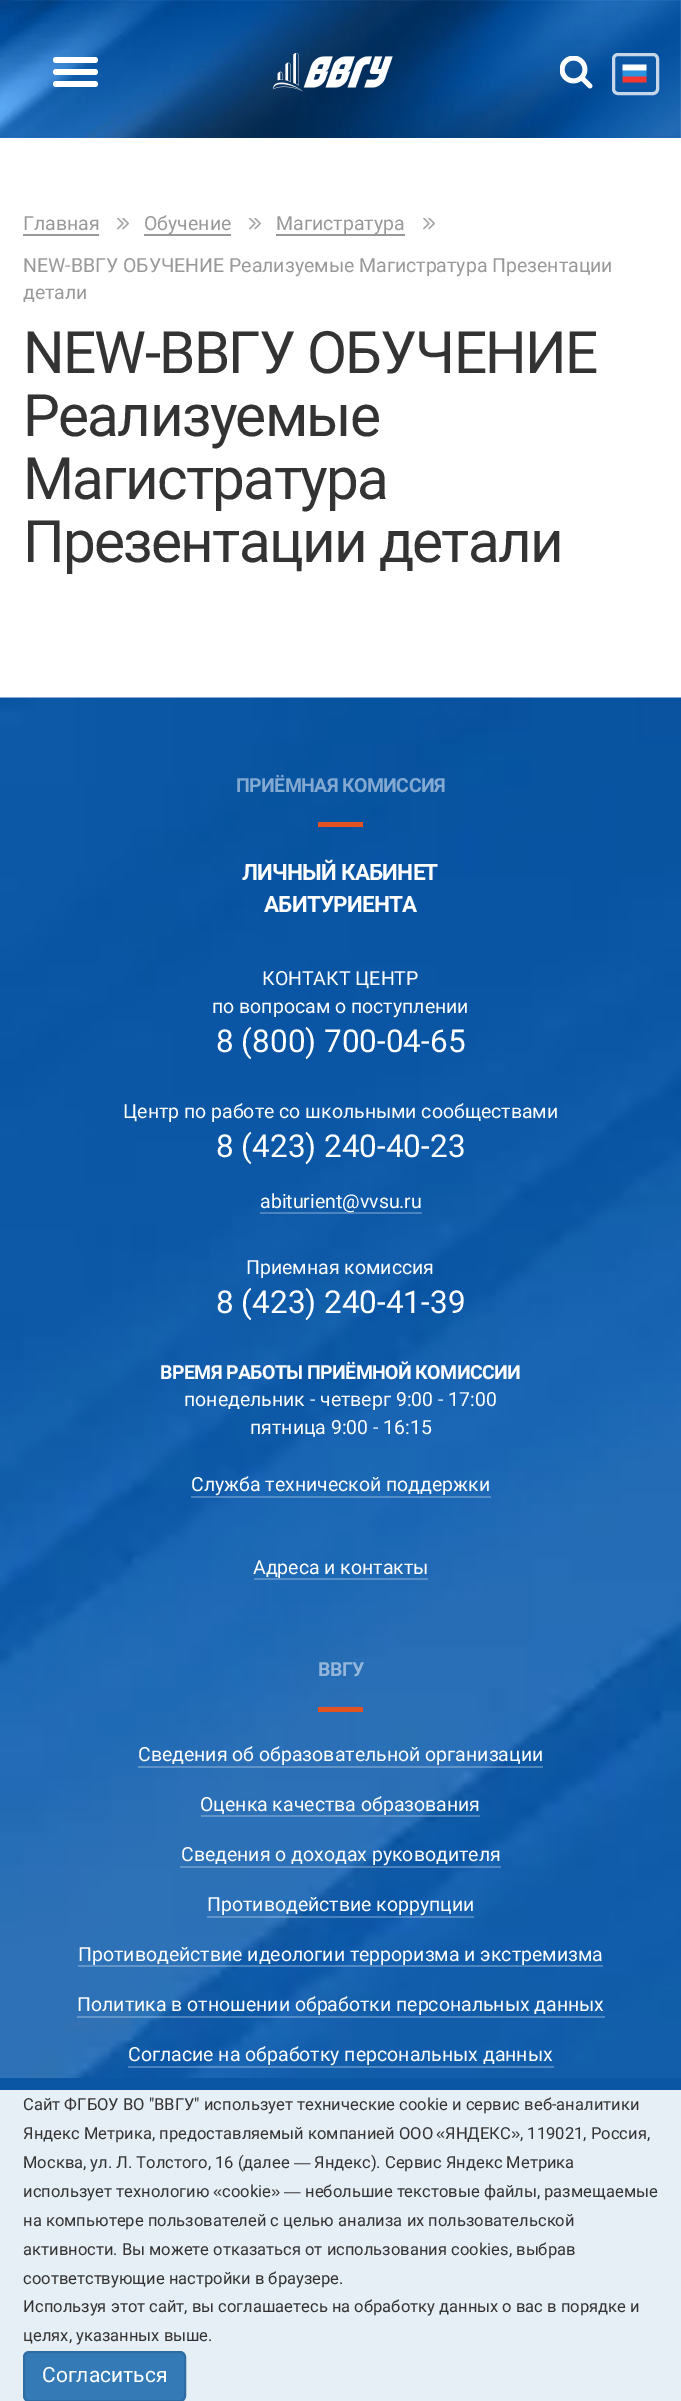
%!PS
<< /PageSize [681 2401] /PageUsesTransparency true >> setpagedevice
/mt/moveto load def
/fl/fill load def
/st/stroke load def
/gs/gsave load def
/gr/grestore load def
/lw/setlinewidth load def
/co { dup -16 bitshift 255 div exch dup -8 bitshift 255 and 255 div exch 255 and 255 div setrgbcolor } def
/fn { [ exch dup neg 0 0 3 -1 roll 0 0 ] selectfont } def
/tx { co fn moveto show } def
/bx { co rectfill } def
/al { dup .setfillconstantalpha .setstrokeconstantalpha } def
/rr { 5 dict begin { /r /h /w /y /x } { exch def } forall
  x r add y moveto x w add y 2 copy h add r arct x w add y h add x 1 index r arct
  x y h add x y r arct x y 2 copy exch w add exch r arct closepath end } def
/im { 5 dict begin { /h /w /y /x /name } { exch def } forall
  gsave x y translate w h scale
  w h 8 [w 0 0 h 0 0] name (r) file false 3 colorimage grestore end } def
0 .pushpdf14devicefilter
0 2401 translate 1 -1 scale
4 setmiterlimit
0 0 681 2401 16#FFFFFF bx
(media/1.raw) 0 0 681 138 im
53 57 45 6 3 rr fl
53 69 45 6 3 rr fl
53 81 45 6 3 rr fl
(media/2.raw) 273 53 120 39 im
(media/3.raw) 560 56 33 33 im
16#0A56A4 co
613.5 54.5 44 39 4.5 rr gs fl gr
16#C6D7EA co
3 lw
st
(media/4.raw) 622 64 25 19 im
23 234 76 2 16#999999 bx
(media/5.raw) 117 218 12 12 im
144 234 87 2 16#999999 bx
(media/5.raw) 249 218 12 12 im
276 234 129 2 16#999999 bx
(media/5.raw) 423 218 12 12 im
(media/6.raw) 0 697 681 1381 im
318 822 45 5 16#E35321 bx
0.25 al
260 1212 162 2 16#FFFFFF bx
191 1496 300 2 16#FFFFFF bx
254 1578 174 2 16#FFFFFF bx
1 al
318 1707 45 5 16#E35321 bx
0.25 al
138 1766 405 2 16#FFFFFF bx
201 1815 279 2 16#FFFFFF bx
180 1866 321 2 16#FFFFFF bx
207 1916 267 2 16#FFFFFF bx
78 1965 525 2 16#FFFFFF bx
77 2016 528 2 16#FFFFFF bx
128 2066 426 2 16#FFFFFF bx
1 al
0 2090 681 311 16#E6EEF6 bx
0 2078 681 12 16#0A56A4 bx
16#337AB7 co
24 2352 161 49 5 rr gs fl gr
16#2E6DA4 co
2 lw
st
(Главная) 23 230 /Roboto-Regular 19.5 16#999999 tx
(Обучение) 144 230 /Roboto-Regular 19.5 16#999999 tx
(Магистратура) 276 230 /Roboto-Regular 19.5 16#999999 tx
(NEW-ВВГУ ОБУЧЕНИЕ Реализуемые Магистратура Презентации) 23 272 /Roboto-Regular 19.5 16#999999 tx
(детали) 23 299 /Roboto-Regular 19.5 16#999999 tx
/Roboto-Regular 58.5 fn
16#333333 co
23 373 mt -1.75 0 (NEW-ВВГУ ОБУЧЕНИЕ) ashow
23 436 mt -1.75 0 (Реализуемые) ashow
23 499 mt -1.75 0 (Магистратура) ashow
23 562 mt -1.75 0 (Презентации детали) ashow
/Roboto-Bold 19.5 fn
16#83A9D0 co
236 792 mt -.6 0 (ПРИЁМНАЯ КОМИССИЯ) ashow
/Roboto-Bold 22.5 fn
16#FFFFFF co
242 880 mt -.75 0 (ЛИЧНЫЙ КАБИНЕТ) ashow
264 912 mt -.75 0 (АБИТУРИЕНТА) ashow
(КОНТАКТ ЦЕНТР) 262 985 /Roboto-Regular 19.5 16#FFFFFF tx
(по вопросам о поступлении) 212 1013 /Roboto-Regular 19.5 16#FFFFFF tx
(8 \(800\) 700-04-65) 216 1052 /Roboto-Regular 31.5 16#FFFFFF tx
(Центр по работе со школьными сообществами) 123 1118 /Roboto-Regular 19.5 16#FFFFFF tx
(8 \(423\) 240-40-23) 216 1157 /Roboto-Regular 31.5 16#FFFFFF tx
(abiturient@vvsu.ru) 260 1208 /Roboto-Regular 19.5 16#FFFFFF tx
(Приемная комиссия) 246 1274 /Roboto-Regular 19.5 16#FFFFFF tx
(8 \(423\) 240-41-39) 216 1313 /Roboto-Regular 31.5 16#FFFFFF tx
/Roboto-Bold 19.5 fn
160 1379 mt -.6 0 (ВРЕМЯ РАБОТЫ ПРИЁМНОЙ КОМИССИИ) ashow
(понедельник - четверг 9:00 - 17:00) 184 1406 /Roboto-Regular 19.5 16#FFFFFF tx
(пятница 9:00 - 16:15) 250 1434 /Roboto-Regular 19.5 16#FFFFFF tx
(Служба технической поддержки) 191 1491 /Roboto-Regular 19.5 16#FFFFFF tx
(Адреса и контакты) 253 1574 /Roboto-Regular 19.5 16#FFFFFF tx
/Roboto-Bold 19.5 fn
16#93B6DA co
318 1676 mt -.6 0 (ВВГУ) ashow
(Сведения об образовательной организации) 138 1761 /Roboto-Regular 19.5 16#FFFFFF tx
(Оценка качества образования) 200 1811 /Roboto-Regular 19.5 16#FFFFFF tx
(Сведения о доходах руководителя) 181 1861 /Roboto-Regular 19.5 16#FFFFFF tx
(Противодействие коррупции) 207 1911 /Roboto-Regular 19.5 16#FFFFFF tx
(Противодействие идеологии терроризма и экстремизма) 78 1961 /Roboto-Regular 19.5 16#FFFFFF tx
(Политика в отношении обработки персональных данных) 77 2011 /Roboto-Regular 19.5 16#FFFFFF tx
(Согласие на обработку персональных данных) 128 2061 /Roboto-Regular 19.5 16#FFFFFF tx
(Cайт ФГБОУ ВО "ВВГУ" использует технические cookie и сервис веб-аналитики) 23 2110 /Roboto-Regular 16.6 16#333333 tx
(Яндекс Метрика, предоставляемый компанией ООО) 23 2139 /Roboto-Regular 16.6 16#333333 tx
(«) 436 2139 /LiberationSans-Regular 16.6 16#333333 tx
(ЯНДЕКС) 445 2139 /Roboto-Regular 16.6 16#333333 tx
(») 511 2139 /LiberationSans-Regular 16.6 16#333333 tx
(, 119021, Россия,) 520 2139 /Roboto-Regular 16.6 16#333333 tx
(Москва, ул.) 23 2168 /Roboto-Regular 16.6 16#333333 tx
(Л. Толстого,) 116 2168 /Roboto-Regular 16.6 16#333333 tx
(16 \(далее) 215 2168 /Roboto-Regular 16.6 16#333333 tx
(—) 294 2168 /LiberationSans-Regular 16.6 16#333333 tx
(Яндекс\). Сервис Яндекс Метрика) 314 2168 /Roboto-Regular 16.6 16#333333 tx
(использует технологию) 23 2197 /Roboto-Regular 16.6 16#333333 tx
(«) 213 2197 /LiberationSans-Regular 16.6 16#333333 tx
(cookie) 222 2197 /Roboto-Regular 16.6 16#333333 tx
(») 271 2197 /LiberationSans-Regular 16.6 16#333333 tx
(—) 284 2197 /LiberationSans-Regular 16.6 16#333333 tx
(небольшие текстовые файлы, размещаемые) 305 2197 /Roboto-Regular 16.6 16#333333 tx
(на компьютере пользователей с целью анализа их пользовательской) 23 2226 /Roboto-Regular 16.6 16#333333 tx
(активности. Вы можете отказаться от использования cookies, выбрав) 23 2255 /Roboto-Regular 16.6 16#333333 tx
(соответствующие настройки в браузере.) 23 2284 /Roboto-Regular 16.6 16#333333 tx
(Используя этот сайт, вы соглашаетесь на обработку данных о вас в порядке и) 23 2312 /Roboto-Regular 16.6 16#333333 tx
(целях, указанных выше.) 23 2341 /Roboto-Regular 16.6 16#333333 tx
(Согласиться) 42 2382 /Roboto-Regular 21 16#FFFFFF tx
.poppdf14devicefilter showpage
